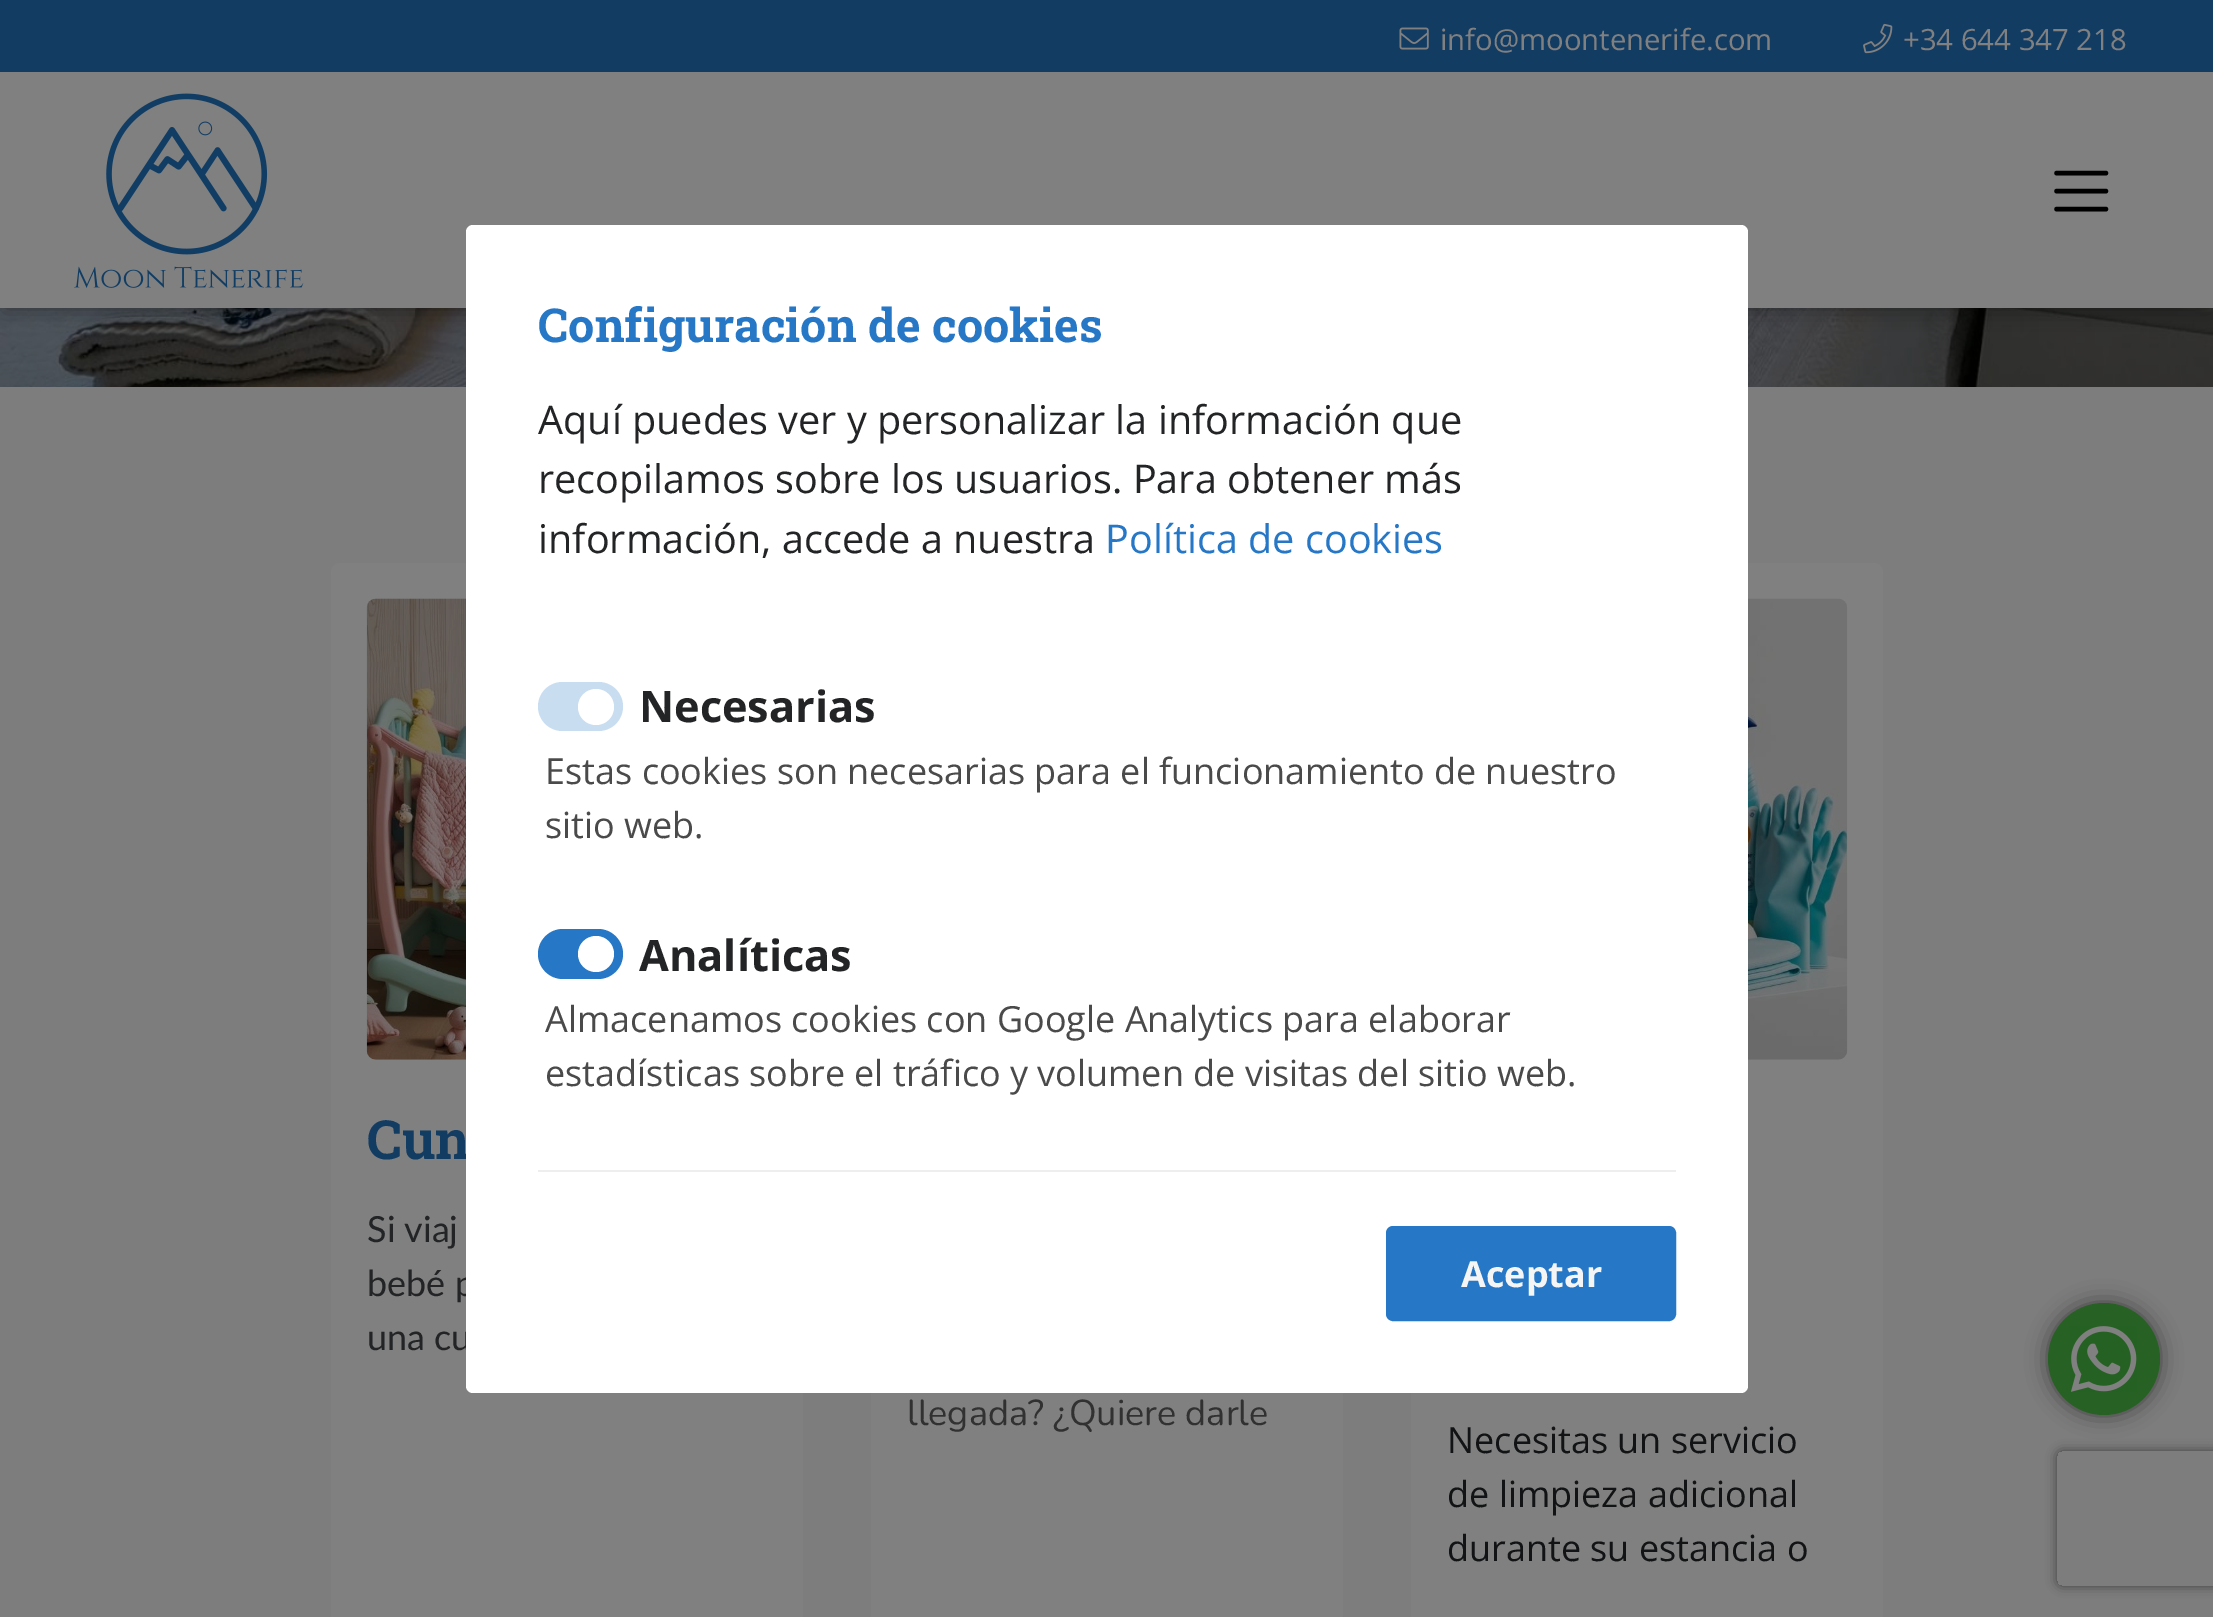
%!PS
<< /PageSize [2213 1617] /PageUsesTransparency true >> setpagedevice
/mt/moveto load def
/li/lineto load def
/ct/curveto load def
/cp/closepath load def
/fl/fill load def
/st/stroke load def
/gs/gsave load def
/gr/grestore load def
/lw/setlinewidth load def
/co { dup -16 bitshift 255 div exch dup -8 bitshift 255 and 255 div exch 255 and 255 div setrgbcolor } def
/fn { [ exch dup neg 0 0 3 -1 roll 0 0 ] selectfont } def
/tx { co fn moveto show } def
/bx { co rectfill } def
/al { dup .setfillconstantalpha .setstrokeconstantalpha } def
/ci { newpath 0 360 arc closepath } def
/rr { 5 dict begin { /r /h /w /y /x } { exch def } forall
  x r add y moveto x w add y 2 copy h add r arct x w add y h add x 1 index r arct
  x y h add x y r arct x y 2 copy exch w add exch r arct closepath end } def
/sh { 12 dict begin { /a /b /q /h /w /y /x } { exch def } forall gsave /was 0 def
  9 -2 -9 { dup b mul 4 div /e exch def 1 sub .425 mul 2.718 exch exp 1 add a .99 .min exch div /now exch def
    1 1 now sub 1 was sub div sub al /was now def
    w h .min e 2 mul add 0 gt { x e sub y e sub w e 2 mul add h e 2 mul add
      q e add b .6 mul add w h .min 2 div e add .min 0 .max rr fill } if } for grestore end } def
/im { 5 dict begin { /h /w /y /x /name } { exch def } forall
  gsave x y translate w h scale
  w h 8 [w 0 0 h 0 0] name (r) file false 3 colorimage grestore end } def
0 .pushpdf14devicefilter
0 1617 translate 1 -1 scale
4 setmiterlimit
0 0 2213 1617 16#7D7D7D bx
(media/6.raw) 0 308 2213 79 im
16#000000 co
5 9 2205 299 0 11 .41 sh
0 72 2213 236 16#808080 bx
0 0 2213 72 16#133C63 bx
(media/1.raw) 1399 27 30 23 im
(media/2.raw) 1863 23 30 31 im
(media/3.raw) 74 93 230 195 im
16#000000 co
4.5 lw
1 setlinecap
2056.5 173 mt 2106 173 li 2056.5 191 mt 2106 191 li 2056.5 209 mt 2106 209 li st
16#808080 co
331 563 472 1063 9 rr fl
(media/4.raw) 366 598 100 462 im
871 1393 472 224 16#808080 bx
1411 563 472 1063 9 rr fl
(media/5.raw) 1748 598 100 462 im
16#000000 co
2048 1303 112 112 56 11 .5 sh
16#276124 co
2104 1359 56 ci fl
(media/7.raw) 2070 1326 67 66 im
gs
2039 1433 mt 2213 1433 li 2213 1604 li 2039 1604 li cp 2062 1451 mt 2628 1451 li 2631 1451 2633 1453 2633 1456 ct 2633 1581 li 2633 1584 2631 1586 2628 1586 ct 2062 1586 li 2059 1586 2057 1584 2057 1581 ct 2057 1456 li 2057 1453 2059 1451 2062 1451 ct cp eoclip newpath
16#404040 co
2057 1451 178 135 5 5.5 1 sh
gr
(info@moontenerife.com) 1440 50 /OpenSans-Regular 29.25 16#808080 tx
(+34 644 347 218) 1903 50 /OpenSans-Regular 29.25 16#808080 tx
(Cun) 367 1159 /RobotoSlab-Bold 54 16#133C63 tx
(Si viaj) 367 1242 /Lato-Regular 36 16#232426 tx
(bebé p) 367 1296 /Lato-Regular 36 16#232426 tx
(una cu) 367 1350 /Lato-Regular 36 16#232426 tx
(llegada? ¿Quiere darle) 907 1425 /Nunito-Regular 36 16#313131 tx
(Necesitas un servicio) 1447 1453 /OpenSans-Regular 36 16#111315 tx
(de limpieza adicional) 1447 1507 /OpenSans-Regular 36 16#111315 tx
(durante su estancia o) 1447 1561 /OpenSans-Regular 36 16#111315 tx
16#FFFFFF co
466 225 1282 1168 7 rr fl
(Configuración de cookies) 538 342 /RobotoSlab-Bold 46.75 16#2677C6 tx
538 1170 1138 2 16#EEEEEE bx
(Aquí puedes ver y personalizar la información que) 538 434 /OpenSans-Regular 39.6 16#232426 tx
(recopilamos sobre los usuarios. Para obtener más) 538 493 /OpenSans-Regular 39.6 16#232426 tx
(información, accede a nuestra) 538 553 /OpenSans-Regular 39.6 16#232426 tx
(Política de cookies) 1105 553 /OpenSans-Regular 39.6 16#2677C6 tx
16#C9DDF1 co
538 682 85 49 24.5 rr fl
16#FFFFFF co
596 707 18 ci fl
(Necesarias) 639 722 /OpenSans-Bold 43.25 16#232426 tx
(Estas cookies son necesarias para el funcionamiento de nuestro) 545 784 /OpenSans-Regular 36 16#4A4A4A tx
(sitio web.) 545 838 /OpenSans-Regular 36 16#4A4A4A tx
16#2677C6 co
538 929 85 50 25 rr fl
16#FFFFFF co
596 954 18 ci fl
(Analíticas) 639 971 /OpenSans-Bold 43.25 16#232426 tx
(Almacenamos cookies con Google Analytics para elaborar) 545 1032 /OpenSans-Regular 36 16#4A4A4A tx
(estadísticas sobre el tráfico y volumen de visitas del sitio web.) 545 1086 /OpenSans-Regular 36 16#4A4A4A tx
16#2677C6 co
1387 1227 288 93 6 rr gs fl gr
2 lw
0 setlinecap
st
(Aceptar) 1461 1287 /OpenSans-Bold 36 16#F5F5F5 tx
.poppdf14devicefilter showpage
